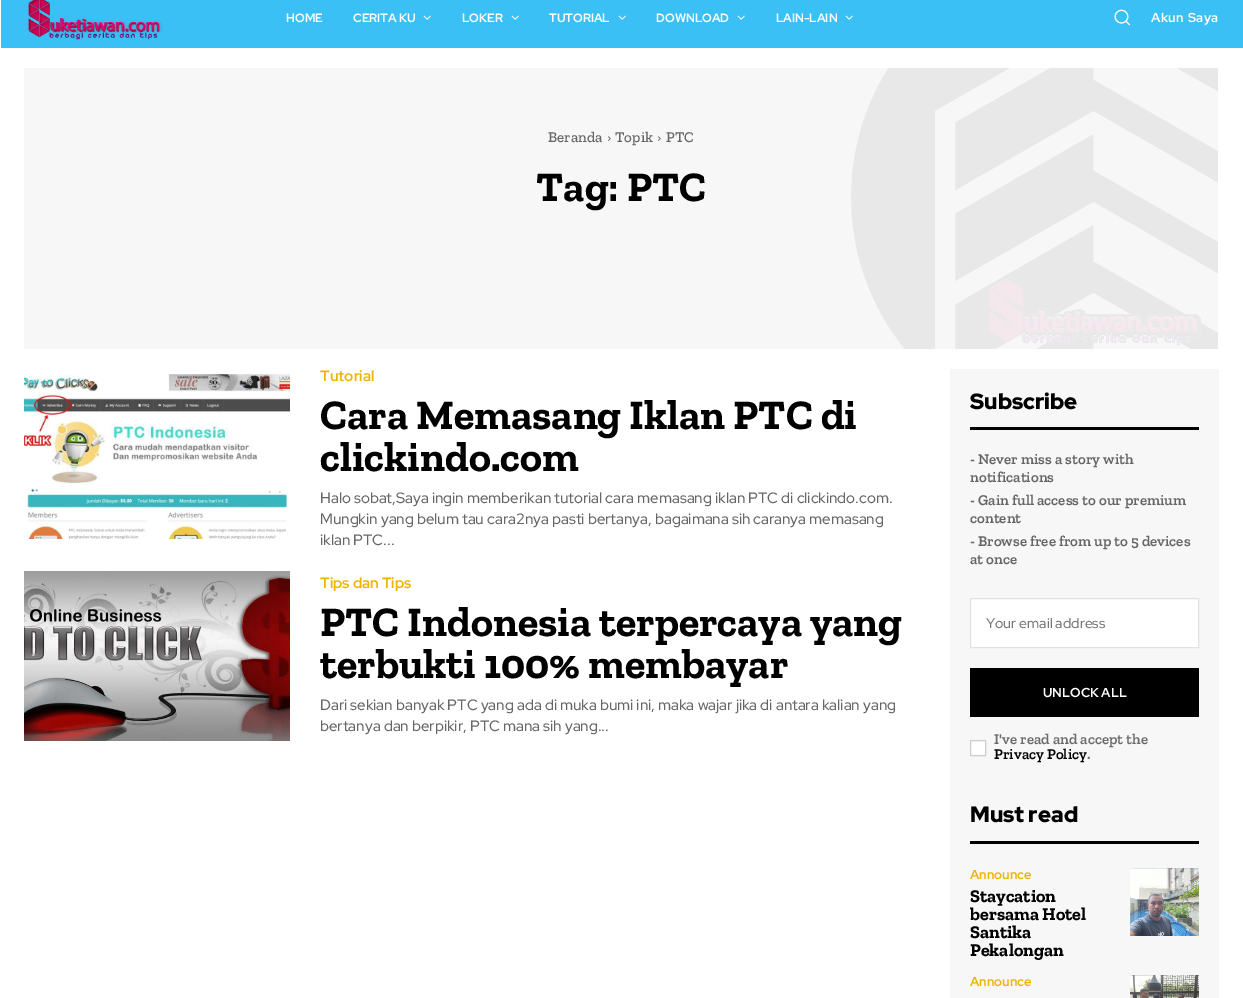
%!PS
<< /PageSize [1243 998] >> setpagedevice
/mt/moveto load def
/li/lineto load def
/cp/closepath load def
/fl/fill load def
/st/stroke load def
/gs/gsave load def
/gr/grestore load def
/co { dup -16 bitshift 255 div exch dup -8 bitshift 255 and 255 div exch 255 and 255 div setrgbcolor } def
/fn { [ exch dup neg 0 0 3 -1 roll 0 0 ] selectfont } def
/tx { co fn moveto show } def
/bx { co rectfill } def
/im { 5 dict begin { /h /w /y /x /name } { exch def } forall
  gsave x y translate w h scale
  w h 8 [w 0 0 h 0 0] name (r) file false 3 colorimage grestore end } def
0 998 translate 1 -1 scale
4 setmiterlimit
0 0 1243 998 16#FFFFFF bx
1 0 1242 48 16#3AC0F5 bx
(media/1.raw) 28 0 135 40 im
(media/2.raw) 423 15 8 5 im
(media/2.raw) 511 15 8 5 im
(media/2.raw) 618 15 8 5 im
(media/2.raw) 737 15 8 5 im
(media/2.raw) 845 15 8 5 im
(media/3.raw) 1114 9 17 17 im
24 68 1194 281 16#F7F7F7 bx
(media/4.raw) 851 68 367 281 im
(media/5.raw) 608 136 3 5 im
(media/5.raw) 658 136 3 5 im
(media/6.raw) 24 374 266 165 im
(media/7.raw) 24 571 266 170 im
950 369 269 629 16#F7F7F7 bx
970 427 229 3 16#000000 bx
16#FFFFFF co
970.5 598.5 mt 1198.5 598.5 li 1198.5 647.5 li 970.5 647.5 li cp gs fl gr
16#E1E1E1 co
st
970 668 229 49 16#000000 bx
16#FFFFFF co
970.5 740.5 mt 985.5 740.5 li 985.5 755.5 li 970.5 755.5 li cp gs fl gr
16#CCCCCC co
st
970 841 229 3 16#000000 bx
(media/8.raw) 1130 868 69 68 im
(media/9.raw) 1130 975 69 23 im
(HOME) 286 22 /RedHatDisplay-Bold 12 16#FFFFFF tx
(CERITA KU) 353 22 /RedHatDisplay-Bold 12 16#FFFFFF tx
(LOKER) 462 22 /RedHatDisplay-Bold 12 16#FFFFFF tx
(TUTORIAL) 549 22 /RedHatDisplay-Bold 12 16#FFFFFF tx
(DOWNLOAD) 656 22 /RedHatDisplay-Bold 12 16#FFFFFF tx
(LAIN-LAIN) 776 22 /RedHatDisplay-Bold 12 16#FFFFFF tx
/RedHatDisplay-Bold 13 fn
1151 22 mt .5 0 (Akun Saya) ashow
(Beranda) 548 142 /ZillaSlab-Medium 15 16#666666 tx
(Topik) 615 142 /ZillaSlab-Medium 15 16#666666 tx
(PTC) 666 142 /ZillaSlab-Medium 15 16#666666 tx
(Tag: PTC) 536 201 /ZillaSlab-Bold 42 16#000000 tx
(Tutorial) 320 381 /RedHatDisplay-Bold 15 16#EDB500 tx
(Cara Memasang Iklan PTC di) 320 429 /ZillaSlab-Bold 42 16#000000 tx
(clickindo.com) 320 471 /ZillaSlab-Bold 42 16#000000 tx
(Halo sobat,Saya ingin memberikan tutorial cara memasang iklan PTC di clickindo.com.) 320 503 /RedHatDisplay-Medium 15 16#666666 tx
(Mungkin yang belum tau cara2nya pasti bertanya, bagaimana sih caranya memasang) 320 524 /RedHatDisplay-Medium 15 16#666666 tx
(iklan PTC...) 320 545 /RedHatDisplay-Medium 15 16#666666 tx
(Tips dan Tips) 320 588 /RedHatDisplay-Bold 15 16#EDB500 tx
(PTC Indonesia terpercaya yang) 320 636 /ZillaSlab-Bold 42 16#000000 tx
(terbukti 100% membayar) 320 678 /ZillaSlab-Bold 42 16#000000 tx
(Dari sekian banyak PTC yang ada di muka bumi ini, maka wajar jika di antara kalian yang) 320 710 /RedHatDisplay-Medium 15 16#666666 tx
(bertanya dan berpikir, PTC mana sih yang...) 320 731 /RedHatDisplay-Medium 15 16#666666 tx
(Subscribe) 970 409 /RedHatDisplay-Black 22 16#000000 tx
(- Never miss a story with) 970 464 /ZillaSlab-SemiBold 15 16#666666 tx
(notifications) 970 482 /ZillaSlab-SemiBold 15 16#666666 tx
(- Gain full access to our premium) 970 505 /ZillaSlab-SemiBold 15 16#666666 tx
(content) 970 523 /ZillaSlab-SemiBold 15 16#666666 tx
(- Browse free from up to 5 devices) 970 546 /ZillaSlab-SemiBold 15 16#666666 tx
(at once) 970 564 /ZillaSlab-SemiBold 15 16#666666 tx
(Your email address) 986 628 /RedHatDisplay-Medium 14 16#757575 tx
(UNLOCK ALL) 1043 697 /RedHatDisplay-Bold 13 16#FFFFFF tx
(I've read and accept the) 994 744 /ZillaSlab-SemiBold 15 16#6D6D6D tx
(Privacy Policy) 994 759 /ZillaSlab-SemiBold 15 16#000000 tx
(.) 1087 759 /ZillaSlab-SemiBold 15 16#6D6D6D tx
(Must read) 970 822 /RedHatDisplay-Black 22 16#000000 tx
(Announce) 970 879 /RedHatDisplay-Bold 13 16#EDB500 tx
(Staycation) 970 902 /ZillaSlab-Bold 18 16#000000 tx
(bersama Hotel) 970 920 /ZillaSlab-Bold 18 16#000000 tx
(Santika) 970 938 /ZillaSlab-Bold 18 16#000000 tx
(Pekalongan) 970 956 /ZillaSlab-Bold 18 16#000000 tx
(Announce) 970 986 /RedHatDisplay-Bold 13 16#EDB500 tx
showpage
